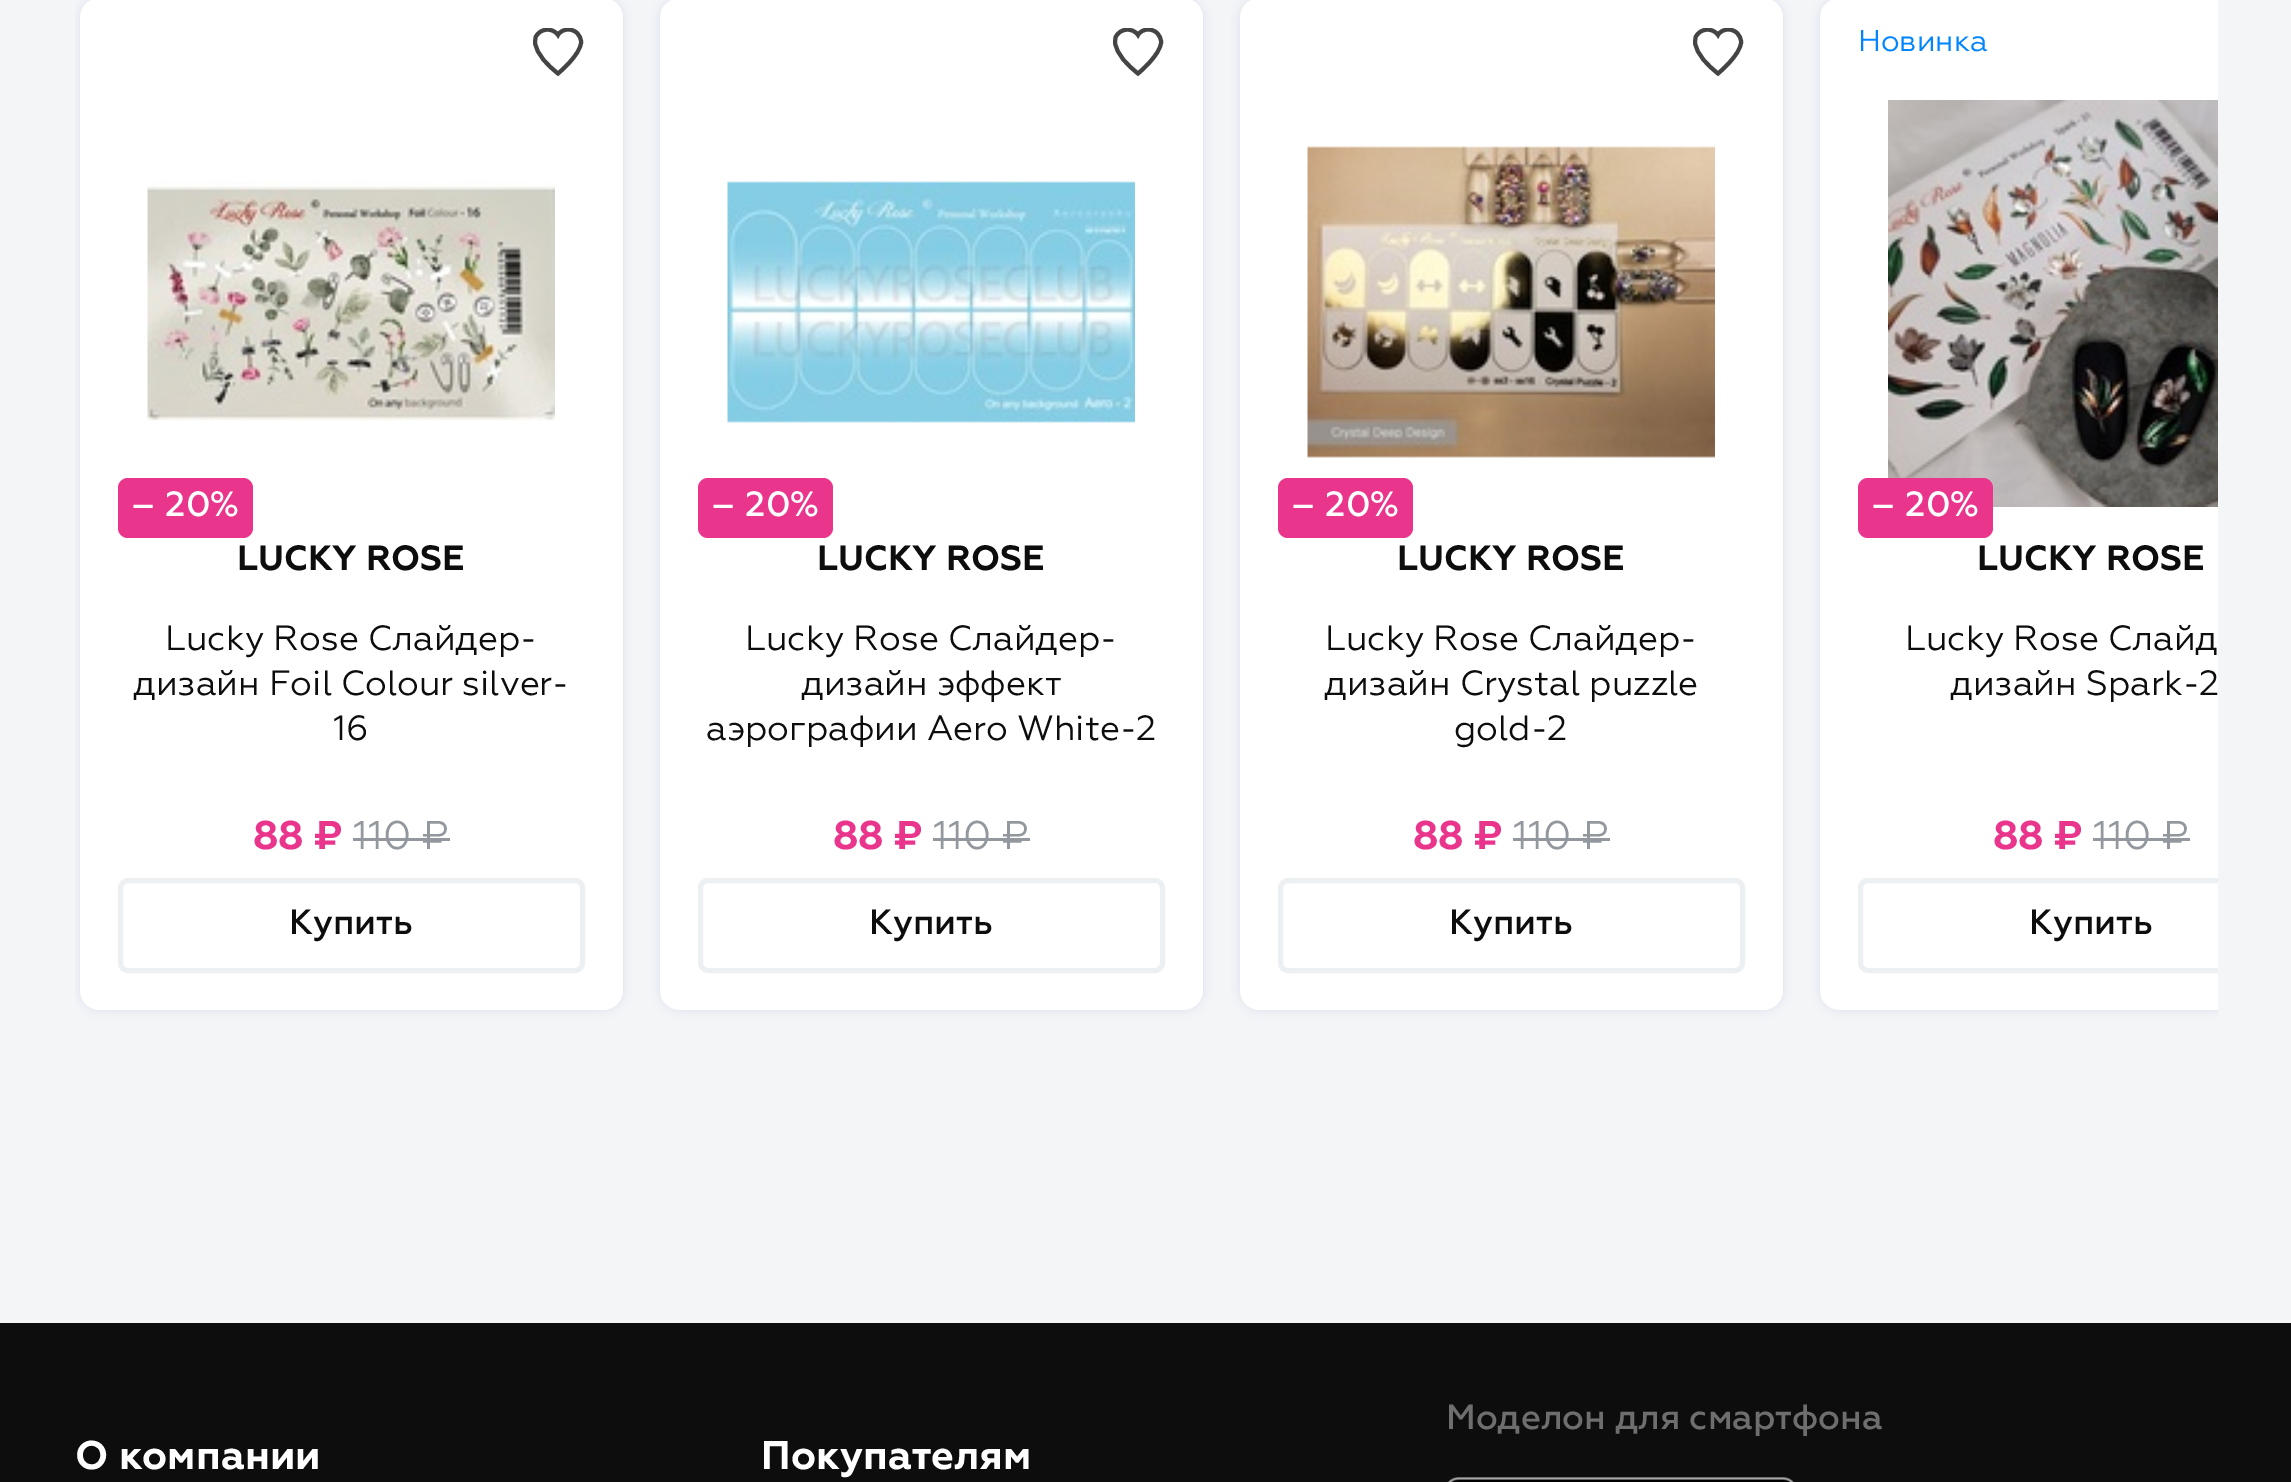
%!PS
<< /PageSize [2291 1482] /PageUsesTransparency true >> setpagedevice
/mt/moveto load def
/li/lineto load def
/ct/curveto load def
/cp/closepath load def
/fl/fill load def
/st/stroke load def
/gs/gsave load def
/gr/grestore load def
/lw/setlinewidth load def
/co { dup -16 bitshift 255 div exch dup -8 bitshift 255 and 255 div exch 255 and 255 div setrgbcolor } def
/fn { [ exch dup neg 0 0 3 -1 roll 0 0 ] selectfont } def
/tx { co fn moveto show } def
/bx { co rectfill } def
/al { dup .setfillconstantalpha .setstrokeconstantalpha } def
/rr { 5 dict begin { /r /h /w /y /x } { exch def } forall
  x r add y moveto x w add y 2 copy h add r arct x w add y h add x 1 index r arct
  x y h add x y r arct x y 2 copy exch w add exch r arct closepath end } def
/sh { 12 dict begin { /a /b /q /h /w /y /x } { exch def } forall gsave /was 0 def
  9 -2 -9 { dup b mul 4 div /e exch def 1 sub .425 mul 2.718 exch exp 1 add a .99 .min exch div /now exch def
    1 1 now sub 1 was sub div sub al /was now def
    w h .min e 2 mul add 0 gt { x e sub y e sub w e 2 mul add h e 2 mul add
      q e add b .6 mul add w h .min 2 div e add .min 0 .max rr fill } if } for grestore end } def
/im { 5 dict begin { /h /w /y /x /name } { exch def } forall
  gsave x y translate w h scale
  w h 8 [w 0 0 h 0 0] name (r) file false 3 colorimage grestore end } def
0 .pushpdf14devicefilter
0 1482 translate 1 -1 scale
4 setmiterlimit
0 0 2291 1482 16#F3F5F7 bx
gs
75 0 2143 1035 rectclip
16#A6B3C2 co
80 -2 543 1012 20 5 .3 sh
gr
16#FFFFFF co
80 -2 543 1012 20 rr fl
gs
533 28 52 50 rectclip
16#444444 co
4 lw
2 setlinecap
568.5 29.5 mt 564 29.5 560 31.5 558 35 ct 552.5 27 539.5 28 535.5 37.5 ct 535 42 li 536.5 55 548 65.5 558 73.5 ct 558 73.5 581 54.5 581 42 ct 581 38.5 579.5 35.5 577 33 ct 575 31 571.5 29.5 568.5 29.5 ct cp st
gr
(media/1.raw) 147 181 408 240 im
16#EA358C co
118 478 135 60 10 rr fl
353 838 97 3 16#92989E bx
16#EDF0F3 co
5 lw
120.5 880.5 462 90 7.5 rr st
16#A6B3C2 co
660 -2 543 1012 20 5 .3 sh
16#FFFFFF co
660 -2 543 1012 20 rr fl
gs
1113 28 52 50 rectclip
16#444444 co
4 lw
2 setlinecap
1148.5 29.5 mt 1144 29.5 1140 31.5 1138 35 ct 1132.5 27 1119.5 28 1115.5 37.5 ct 1115 42 li 1116.5 55 1128 65.5 1138 73.5 ct 1138 73.5 1161 54.5 1161 42 ct 1161 38.5 1159.5 35.5 1157 33 ct 1155 31 1151.5 29.5 1148.5 29.5 ct cp st
gr
(media/2.raw) 727 181 408 242 im
16#EA358C co
698 478 135 60 10 rr fl
933 838 97 3 16#92989E bx
16#EDF0F3 co
700.5 880.5 462 90 7.5 rr st
16#A6B3C2 co
1240 -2 543 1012 20 5 .3 sh
16#FFFFFF co
1240 -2 543 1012 20 rr fl
gs
1693 28 52 50 rectclip
16#444444 co
4 lw
2 setlinecap
1728.5 29.5 mt 1724 29.5 1720 31.5 1718 35 ct 1712.5 27 1699.5 28 1695.5 37.5 ct 1695 42 li 1696.5 55 1708 65.5 1718 73.5 ct 1718 73.5 1741 54.5 1741 42 ct 1741 38.5 1739.5 35.5 1737 33 ct 1735 31 1731.5 29.5 1728.5 29.5 ct cp st
gr
(media/3.raw) 1307 146 408 312 im
16#EA358C co
1278 478 135 60 10 rr fl
1513 838 97 3 16#92989E bx
16#EDF0F3 co
1280.5 880.5 462 90 7.5 rr st
gs
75 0 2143 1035 rectclip
16#A6B3C2 co
1820 -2 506 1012 20 5 .3 sh
gr
16#FFFFFF co
1840 -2 mt 2218 -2 li 2218 1010 li 1840 1010 li 1829 1010 1820 1001 1820 990 ct 1820 18 li 1820 7 1829 -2 1840 -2 ct cp fl
(media/4.raw) 1888 100 330 407 im
16#EA358C co
1858 478 135 60 10 rr fl
2093 838 97 3 16#92989E bx
gs
75 0 2143 1035 rectclip
16#EDF0F3 co
1860.5 880.5 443 90 7.5 rr st
gr
0 1323 2291 159 16#0D0D0D bx
(media/5.raw) 1447 1477 347 5 im
(– 20%) 130 516 /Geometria-Medium 35 16#FFFFFF tx
(LUCKY ROSE) 237 570 /Geometria-Bold 35 16#0D0D0D tx
(Lucky Rose Слайдер-) 165 650 /Geometria-Regular 35 16#0D0D0D tx
(дизайн Foil Colour silver-) 133 695 /Geometria-Regular 35 16#0D0D0D tx
(16) 333 740 /Geometria-Regular 35 16#0D0D0D tx
(88 ₽) 253 849 /Geometria-Bold 40 16#EA358C tx
(110 ₽) 353 849 /Geometria-Regular 40 16#92989E tx
(Купить) 289 934 /Geometria-Medium 35 16#0D0D0D tx
(– 20%) 710 516 /Geometria-Medium 35 16#FFFFFF tx
(LUCKY ROSE) 817 570 /Geometria-Bold 35 16#0D0D0D tx
(Lucky Rose Слайдер-) 745 650 /Geometria-Regular 35 16#0D0D0D tx
(дизайн эффект) 801 695 /Geometria-Regular 35 16#0D0D0D tx
(аэрографии Aero White-2) 706 740 /Geometria-Regular 35 16#0D0D0D tx
(88 ₽) 833 849 /Geometria-Bold 40 16#EA358C tx
(110 ₽) 933 849 /Geometria-Regular 40 16#92989E tx
(Купить) 869 934 /Geometria-Medium 35 16#0D0D0D tx
(– 20%) 1290 516 /Geometria-Medium 35 16#FFFFFF tx
(LUCKY ROSE) 1397 570 /Geometria-Bold 35 16#0D0D0D tx
(Lucky Rose Слайдер-) 1325 650 /Geometria-Regular 35 16#0D0D0D tx
(дизайн Crystal puzzle) 1324 695 /Geometria-Regular 35 16#0D0D0D tx
(gold-2) 1454 740 /Geometria-Regular 35 16#0D0D0D tx
(88 ₽) 1413 849 /Geometria-Bold 40 16#EA358C tx
(110 ₽) 1513 849 /Geometria-Regular 40 16#92989E tx
(Купить) 1449 934 /Geometria-Medium 35 16#0D0D0D tx
(Новинка) 1858 51 /Geometria-Regular 30 16#0085FF tx
(– 20%) 1870 516 /Geometria-Medium 35 16#FFFFFF tx
(LUCKY ROSE) 1977 570 /Geometria-Bold 35 16#0D0D0D tx
(Lucky Rose Слайд) 1905 650 /Geometria-Regular 35 16#0D0D0D tx
(дизайн Spark-2) 1950 695 /Geometria-Regular 35 16#0D0D0D tx
(88 ₽) 1993 849 /Geometria-Bold 40 16#EA358C tx
(110 ₽) 2093 849 /Geometria-Regular 40 16#92989E tx
(Купить) 2029 934 /Geometria-Medium 35 16#0D0D0D tx
(Моделон для смартфона) 1446 1429 /Geometria-Medium 35 16#6E6E6E tx
(О компании) 75 1469 /Geometria-Bold 40 16#FFFFFF tx
(Покупателям) 761 1469 /Geometria-Bold 40 16#FFFFFF tx
.poppdf14devicefilter showpage
